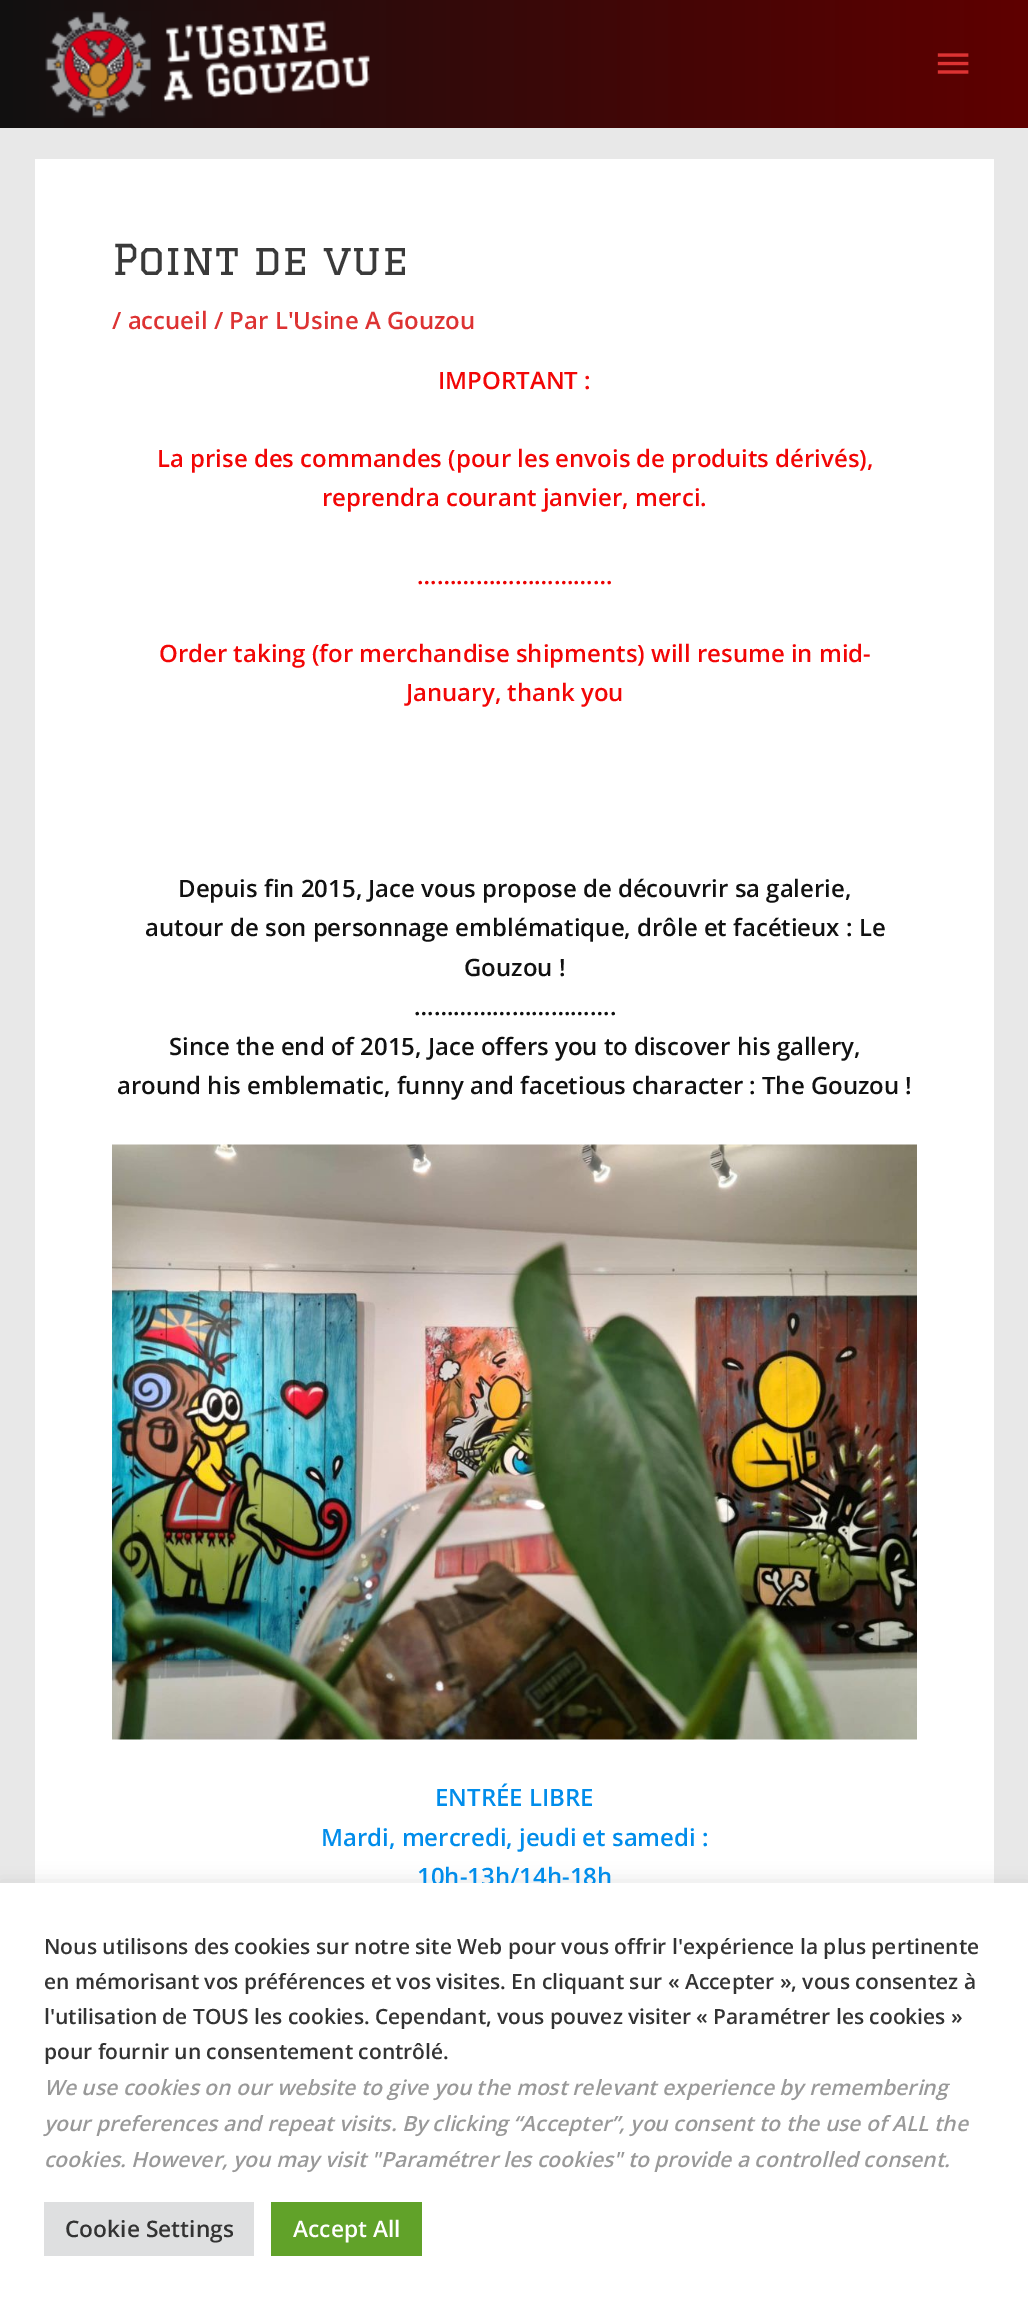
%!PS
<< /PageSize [1028 2307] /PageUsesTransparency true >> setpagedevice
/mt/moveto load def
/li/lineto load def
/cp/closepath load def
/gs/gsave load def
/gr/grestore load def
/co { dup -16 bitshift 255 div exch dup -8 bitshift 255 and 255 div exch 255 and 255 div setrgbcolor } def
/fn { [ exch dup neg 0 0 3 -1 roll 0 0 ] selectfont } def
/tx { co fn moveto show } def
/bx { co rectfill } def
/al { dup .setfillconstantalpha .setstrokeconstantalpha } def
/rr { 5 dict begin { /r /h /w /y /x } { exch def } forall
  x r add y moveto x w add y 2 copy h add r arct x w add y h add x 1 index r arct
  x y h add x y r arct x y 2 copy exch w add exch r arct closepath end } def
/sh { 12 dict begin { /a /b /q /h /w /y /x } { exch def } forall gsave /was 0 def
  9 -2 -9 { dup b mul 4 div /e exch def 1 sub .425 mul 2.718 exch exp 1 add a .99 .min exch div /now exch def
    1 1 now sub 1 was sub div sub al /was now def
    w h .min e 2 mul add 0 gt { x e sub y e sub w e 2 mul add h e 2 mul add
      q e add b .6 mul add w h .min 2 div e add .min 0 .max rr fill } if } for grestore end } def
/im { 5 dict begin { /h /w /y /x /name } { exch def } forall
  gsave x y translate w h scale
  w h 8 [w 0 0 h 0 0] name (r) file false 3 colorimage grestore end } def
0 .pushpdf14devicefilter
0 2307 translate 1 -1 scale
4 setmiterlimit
0 0 1028 2307 16#E8E8E8 bx
gs 0 0 mt 1028 0 li 1028 128 li 0 128 li cp clip newpath
<< /ShadingType 2 /ColorSpace /DeviceRGB /Coords [0 64 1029 64] /Extend [true true] /Function << /FunctionType 2 /Domain [0 1] /C0 [.067 .067 .067] /C1 [.373 0 0] /N 1 >> >> shfill gr
(media/1.raw) 45 11 325 107 im
(media/2.raw) 937 53 32 21 im
35 159 959 1724 16#FFFFFF bx
(media/3.raw) 112 1144 805 596 im
16#ACABAB co
0 1881 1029 426 0 9 .3 sh
(Point de vue) 112 275 /Graduate-Regular 41.5 16#3A3A3A tx
(/ accueil / Par L'Usine A Gouzou) 112 329 /OpenSans-SemiBold 23.95 16#DD3333 tx
(IMPORTANT) 438 389 /OpenSans-SemiBold 23.95 16#F20606 tx
(:) 584 389 /OpenSans-SemiBold 23.95 16#F20E0E tx
(La prise des commandes \(pour les envois de produits dérivés\),) 157 467 /OpenSans-SemiBold 23.95 16#F20606 tx
(reprendra courant janvier, merci.) 322 506 /OpenSans-SemiBold 23.95 16#F20606 tx
(…………………………) 417 584 /OpenSans-SemiBold 23.95 16#EB0303 tx
(Order taking \(for merchandise shipments\) will resume in mid-) 159 662 /OpenSans-SemiBold 23.95 16#F20606 tx
(January, thank you) 406 701 /OpenSans-SemiBold 23.95 16#F20606 tx
(Depuis fin 2015, Jace vous propose de découvrir sa galerie,) 178 897 /OpenSans-SemiBold 23.95 16#111111 tx
(autour de son personnage emblématique, drôle et facétieux : Le) 145 936 /OpenSans-SemiBold 23.95 16#111111 tx
(Gouzou !) 464 976 /OpenSans-SemiBold 23.95 16#111111 tx
(………………………….) 414 1015 /OpenSans-SemiBold 23.95 16#111111 tx
(Since the end of 2015, Jace offers you to discover his gallery,) 169 1055 /OpenSans-SemiBold 23.95 16#111111 tx
(around his emblematic, funny and facetious character) 117 1094 /OpenSans-SemiBold 23.95 16#111111 tx
(: The Gouzou !) 749 1094 /OpenSans-SemiBold 23.95 16#111111 tx
(ENTRÉE LIBRE) 435 1806 /OpenSans-SemiBold 23.95 16#018DEB tx
(Mardi, mercredi, jeudi et samedi :) 321 1846 /OpenSans-SemiBold 23.95 16#018DEB tx
(10h-13h/14h-18h) 417 1885 /OpenSans-SemiBold 23.95 16#018DEB tx
0 1883 1028 424 16#FFFFFF bx
(Nous utilisons des cookies sur notre site Web pour vous offrir l'expérience la plus pertinente) 44 1954 /OpenSans-SemiBold 21 16#333333 tx
(en mémorisant vos préférences et vos visites. En cliquant sur « Accepter », vous consentez à) 44 1989 /OpenSans-SemiBold 21 16#333333 tx
(l'utilisation de TOUS les cookies. Cependant, vous pouvez visiter « Paramétrer les cookies ») 44 2024 /OpenSans-SemiBold 21 16#333333 tx
(pour fournir un consentement contrôlé.) 44 2059 /OpenSans-SemiBold 21 16#333333 tx
(We use cookies on our website to give you the most relevant experience by remembering) 44 2095 /OpenSans-SemiBoldItalic 21 16#999999 tx
(your preferences and repeat visits. By clicking “Accepter”, you consent to the use of ALL the) 44 2131 /OpenSans-SemiBoldItalic 21 16#999999 tx
(cookies. However, you may visit "Paramétrer les cookies" to provide a controlled consent.) 44 2167 /OpenSans-SemiBoldItalic 21 16#999999 tx
44 2202 210 54 16#DEDFE0 bx
(Cookie Settings) 65 2237 /OpenSans-SemiBold 22.75 16#333333 tx
271 2202 151 54 16#61A229 bx
(Accept All) 293 2237 /OpenSans-SemiBold 22.75 16#FFFFFF tx
.poppdf14devicefilter showpage
